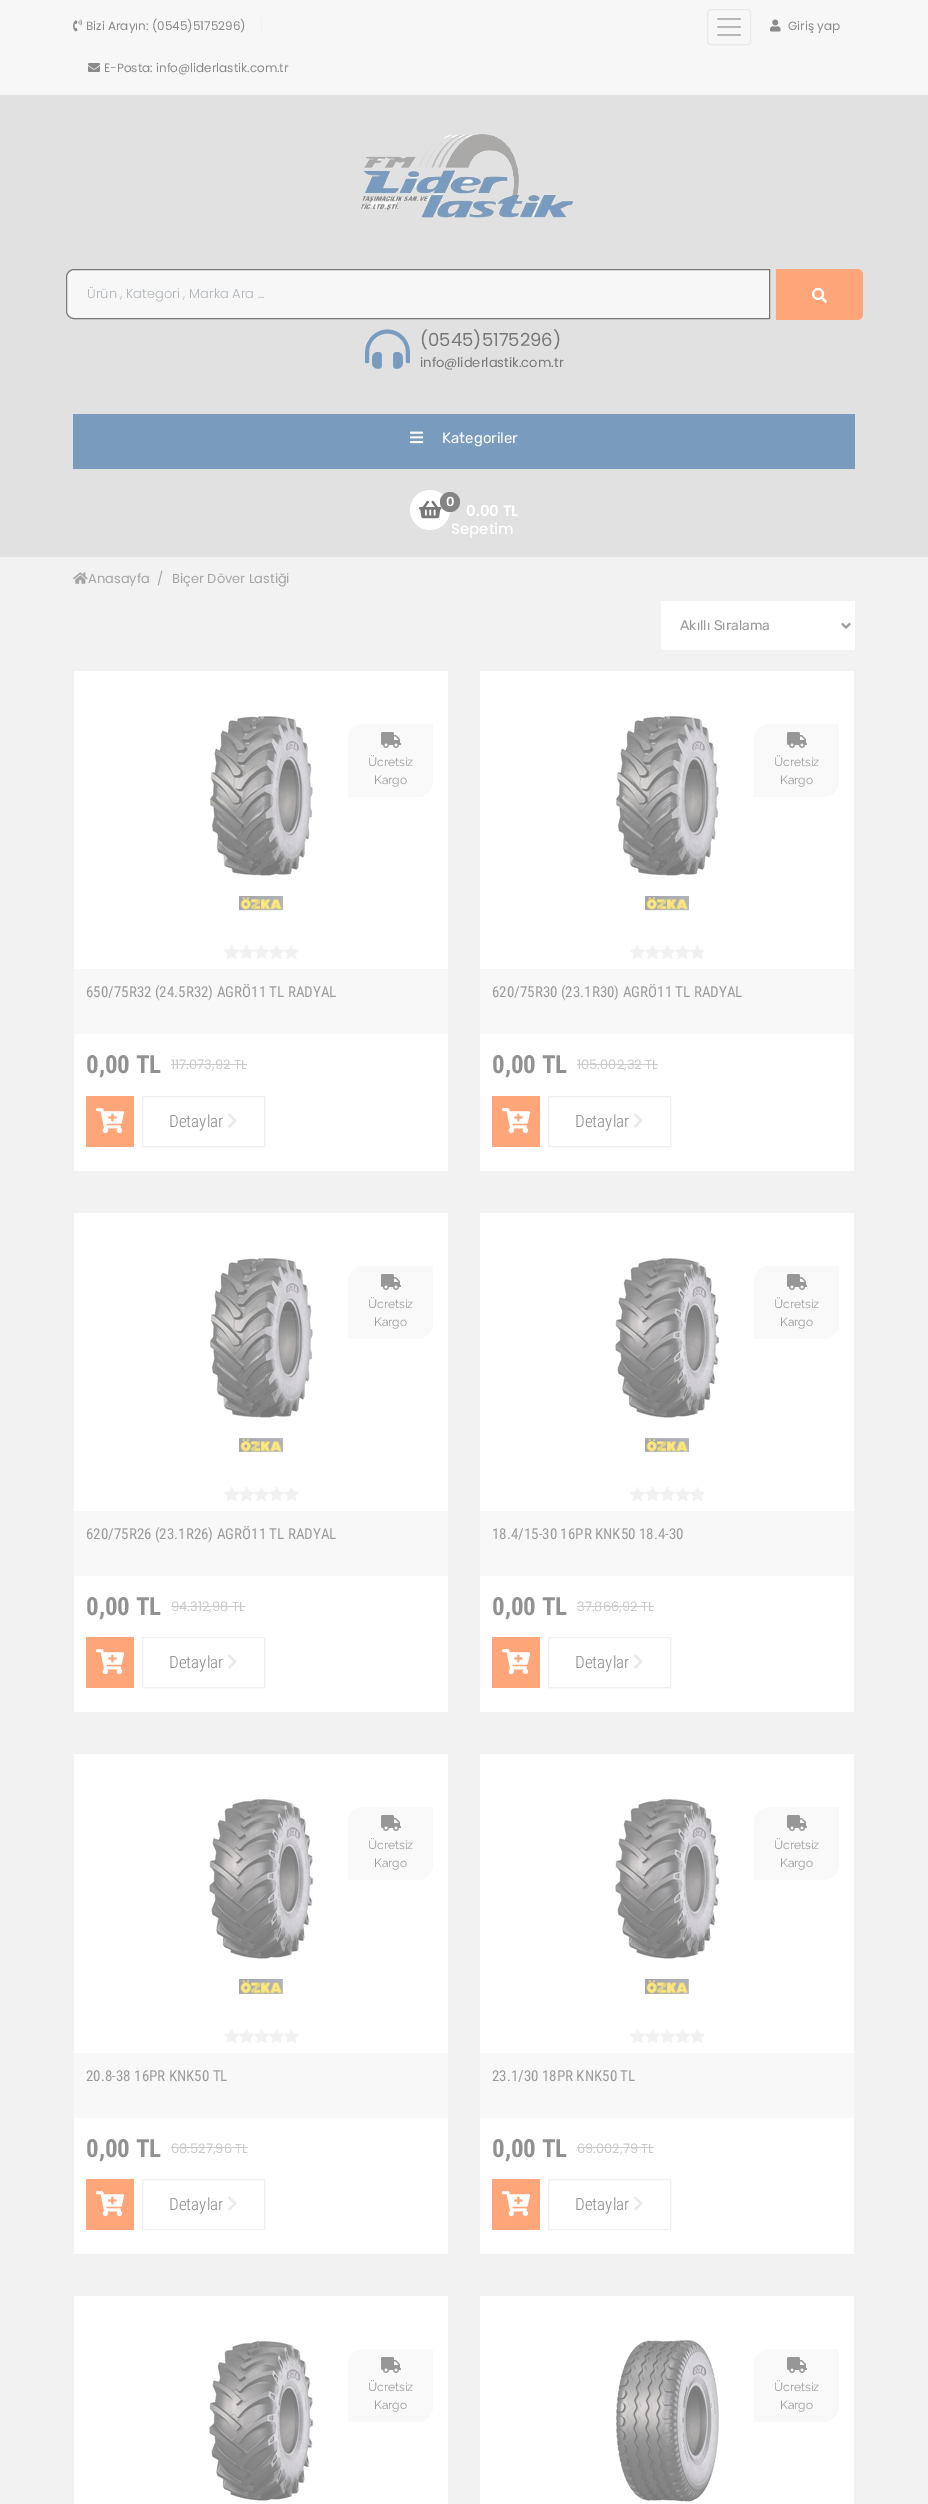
%!PS
<< /PageSize [928 2504] >> setpagedevice
/mt/moveto load def
/li/lineto load def
/ct/curveto load def
/cp/closepath load def
/fl/fill load def
/st/stroke load def
/gs/gsave load def
/gr/grestore load def
/lw/setlinewidth load def
/co { dup -16 bitshift 255 div exch dup -8 bitshift 255 and 255 div exch 255 and 255 div setrgbcolor } def
/fn { [ exch dup neg 0 0 3 -1 roll 0 0 ] selectfont } def
/tx { co fn moveto show } def
/bx { co rectfill } def
/ci { newpath 0 360 arc closepath } def
/rr { 5 dict begin { /r /h /w /y /x } { exch def } forall
  x r add y moveto x w add y 2 copy h add r arct x w add y h add x 1 index r arct
  x y h add x y r arct x y 2 copy exch w add exch r arct closepath end } def
/im { 5 dict begin { /h /w /y /x /name } { exch def } forall
  gsave x y translate w h scale
  w h 8 [w 0 0 h 0 0] name (r) file false 3 colorimage grestore end } def
0 2504 translate 1 -1 scale
4 setmiterlimit
0 0 928 2504 16#E1E1E1 bx
0 0 928 94 16#F7F7F7 bx
0 94 928 1 16#F3F3F3 bx
261 17 1 18 16#F2F0F0 bx
(media/1.raw) 73 19 9 13 im
(media/2.raw) 88 63 12 9 im
16#EAEAEA co
707.5 9.5 43 35 3.5 rr st
(media/3.raw) 717 18 24 18 im
(media/4.raw) 770 19 11 13 im
(media/5.raw) 361 134 213 84 im
16#F7F7F7 co
74 269.5 mt 769.5 269.5 li 769.5 318.5 li 74 318.5 li 70 318.5 66.5 315 66.5 311 ct 66.5 277 li 66.5 273 70 269.5 74 269.5 ct cp gs fl gr
16#787878 co
st
16#FEA579 co
776 269 mt 857 269 li 860.5 269 863 271.5 863 275 ct 863 314 li 863 317.5 860.5 320 857 320 ct 776 320 li cp fl
(media/6.raw) 812 287 15 16 im
(media/7.raw) 365 329 45 40 im
73 414 782 55 16#799BBE bx
(media/8.raw) 410 431 14 13 im
16#FFFFFF co
430 510 20 ci fl
(media/9.raw) 419 500 23 19 im
16#848484 co
450 502 10 ci fl
0 557 928 1947 16#F2F2F2 bx
(media/10.raw) 73 572 15 12 im
661 601 194 49 16#FFFFFF bx
16#9C9B9B co
2 lw
842 623.5 mt 846 627.5 li 850 623.5 li st
74 671 374 500 16#FFFFFF bx
(media/11.raw) 209 716 104 162 im
16#F9F9F9 co
364 724 mt 433 724 li 433 781 li 433 790 426 797 417 797 ct 348 797 li 348 740 li 348 731 355 724 364 724 ct cp fl
(media/12.raw) 381 732 20 16 im
(media/13.raw) 239 896 44 15 im
(media/14.raw) 224 945 75 14 im
74 969 374 65 16#F8F8F8 bx
171 1064 76 1 16#CACACA bx
86 1096 48 51 16#FEA579 bx
(media/15.raw) 96 1108 29 26 im
16#F0EFEF co
1 lw
142.5 1096.5 122 50 rectstroke
(media/16.raw) 228 1113 9 15 im
480 671 374 500 16#FFFFFF bx
(media/11.raw) 615 716 104 162 im
16#F9F9F9 co
770 724 mt 839 724 li 839 781 li 839 790 832 797 823 797 ct 754 797 li 754 740 li 754 731 761 724 770 724 ct cp fl
(media/12.raw) 787 732 20 16 im
(media/13.raw) 645 896 44 15 im
(media/14.raw) 630 945 75 14 im
480 969 374 65 16#F8F8F8 bx
577 1064 81 1 16#CACACA bx
492 1096 48 51 16#FEA579 bx
(media/15.raw) 502 1108 29 26 im
16#F0EFEF co
548.5 1096.5 122 50 rectstroke
(media/16.raw) 634 1113 9 15 im
74 1213 374 499 16#FFFFFF bx
(media/11.raw) 209 1258 104 162 im
16#F9F9F9 co
364 1266 mt 433 1266 li 433 1323 li 433 1332 426 1339 417 1339 ct 348 1339 li 348 1282 li 348 1273 355 1266 364 1266 ct cp fl
(media/12.raw) 381 1274 20 16 im
(media/17.raw) 239 1437 44 15 im
(media/14.raw) 224 1487 75 14 im
74 1511 374 65 16#F8F8F8 bx
171 1606 74 1 16#CACACA bx
86 1637 48 51 16#FEA579 bx
(media/15.raw) 96 1649 29 26 im
16#F0EFEF co
142.5 1637.5 122 50 rectstroke
(media/16.raw) 228 1654 9 15 im
480 1213 374 499 16#FFFFFF bx
(media/18.raw) 615 1258 105 160 im
16#F9F9F9 co
770 1266 mt 839 1266 li 839 1323 li 839 1332 832 1339 823 1339 ct 754 1339 li 754 1282 li 754 1273 761 1266 770 1266 ct cp fl
(media/12.raw) 787 1274 20 16 im
(media/17.raw) 645 1437 44 15 im
(media/14.raw) 630 1487 75 14 im
480 1511 374 65 16#F8F8F8 bx
577 1606 77 1 16#CACACA bx
492 1637 48 51 16#FEA579 bx
(media/15.raw) 502 1649 29 26 im
16#F0EFEF co
548.5 1637.5 122 50 rectstroke
(media/16.raw) 634 1654 9 15 im
74 1754 374 500 16#FFFFFF bx
(media/18.raw) 209 1799 105 160 im
16#F9F9F9 co
364 1807 mt 433 1807 li 433 1864 li 433 1873 426 1880 417 1880 ct 348 1880 li 348 1823 li 348 1814 355 1807 364 1807 ct cp fl
(media/12.raw) 381 1815 20 16 im
(media/19.raw) 239 1979 44 15 im
(media/14.raw) 224 2029 75 14 im
74 2053 374 65 16#F8F8F8 bx
171 2147 77 1 16#CACACA bx
86 2179 48 51 16#FEA579 bx
(media/15.raw) 96 2191 29 26 im
16#F0EFEF co
142.5 2179.5 122 50 rectstroke
(media/16.raw) 228 2196 9 15 im
480 1754 374 500 16#FFFFFF bx
(media/18.raw) 615 1799 105 160 im
16#F9F9F9 co
770 1807 mt 839 1807 li 839 1864 li 839 1873 832 1880 823 1880 ct 754 1880 li 754 1823 li 754 1814 761 1807 770 1807 ct cp fl
(media/12.raw) 787 1815 20 16 im
(media/19.raw) 645 1979 44 15 im
(media/14.raw) 630 2029 75 14 im
480 2053 374 65 16#F8F8F8 bx
577 2147 77 1 16#CACACA bx
492 2179 48 51 16#FEA579 bx
(media/15.raw) 502 2191 29 26 im
16#F0EFEF co
548.5 2179.5 122 50 rectstroke
(media/16.raw) 634 2196 9 15 im
74 2296 374 208 16#FFFFFF bx
(media/18.raw) 209 2341 105 160 im
16#F9F9F9 co
364 2349 mt 433 2349 li 433 2406 li 433 2415 426 2422 417 2422 ct 348 2422 li 348 2365 li 348 2356 355 2349 364 2349 ct cp fl
(media/12.raw) 381 2357 20 16 im
480 2296 374 208 16#FFFFFF bx
(media/20.raw) 616 2340 103 162 im
16#F9F9F9 co
770 2349 mt 839 2349 li 839 2406 li 839 2415 832 2422 823 2422 ct 754 2422 li 754 2365 li 754 2356 761 2349 770 2349 ct cp fl
(media/12.raw) 787 2357 20 16 im
(Bizi Arayın: \(0545\)5175296\)) 86 30 /Poppins-Regular 12 16#8A8A8A tx
(E-Posta: info@liderlastik.com.tr) 104 72 /Poppins-Regular 12 16#8A8A8A tx
(Giriş yap) 788 30 /Poppins-Regular 12 16#8A8A8A tx
(Ürün , Kategori , Marka Ara ...) 87 298 /Poppins-Light 13 16#B1B6BA tx
(\(0545\)5175296\)) 420 346 /Poppins-Regular 18 16#787878 tx
(info@liderlastik.com.tr) 420 367 /Poppins-Regular 13 16#787878 tx
(Kategoriler) 442 443 /Rubik-Regular 15 16#FFFFFF tx
(0) 446 506 /Rubik-Medium 13 16#FFFFFF tx
(0.00 TL) 466 516 /Poppins-SemiBold 15 16#FFFFFF tx
(Sepetim) 451 534 /Poppins-Medium 15 16#FFFFFF tx
(Anasayfa) 88 583 /Poppins-Regular 13 16#A5A5A6 tx
(/) 157 583 /Poppins-Regular 13 16#A5A5A6 tx
(Biçer Döver Lastiği) 172 583 /Poppins-Regular 13 16#A5A5A6 tx
(Akıllı Sıralama) 680 630 /Rubik-Regular 14 16#9C9B9B tx
(Ücretsiz) 368 766 /Raleway-Regular 12 16#9C9B9B tx
(Kargo) 374 784 /Raleway-Regular 12 16#9C9B9B tx
(650/75R32 \(24.5R32\) AGRÖ11 TL RADYAL) 86 997 /RobotoCondensed-Regular 15 16#9C9B9B tx
(0,00 TL) 86 1073 /RobotoCondensed-Bold 25 16#919191 tx
(117.073,92 TL) 171 1069 /Poppins-Regular 13 16#CACACA tx
(Detaylar) 169 1127 /RobotoCondensed-Light 17 16#8A8A8A tx
(Ücretsiz) 774 766 /Raleway-Regular 12 16#9C9B9B tx
(Kargo) 780 784 /Raleway-Regular 12 16#9C9B9B tx
(620/75R30 \(23.1R30\) AGRÖ11 TL RADYAL) 492 997 /RobotoCondensed-Regular 15 16#9C9B9B tx
(0,00 TL) 492 1073 /RobotoCondensed-Bold 25 16#919191 tx
(105.002,32 TL) 577 1069 /Poppins-Regular 13 16#CACACA tx
(Detaylar) 575 1127 /RobotoCondensed-Light 17 16#8A8A8A tx
(Ücretsiz) 368 1308 /Raleway-Regular 12 16#9C9B9B tx
(Kargo) 374 1326 /Raleway-Regular 12 16#9C9B9B tx
(620/75R26 \(23.1R26\) AGRÖ11 TL RADYAL) 86 1539 /RobotoCondensed-Regular 15 16#9C9B9B tx
(0,00 TL) 86 1615 /RobotoCondensed-Bold 25 16#919191 tx
(94.312,98 TL) 171 1611 /Poppins-Regular 13 16#CACACA tx
(Detaylar) 169 1668 /RobotoCondensed-Light 17 16#8A8A8A tx
(Ücretsiz) 774 1308 /Raleway-Regular 12 16#9C9B9B tx
(Kargo) 780 1326 /Raleway-Regular 12 16#9C9B9B tx
(18.4/15-30 16PR KNK50 18.4-30) 492 1539 /RobotoCondensed-Regular 15 16#9C9B9B tx
(0,00 TL) 492 1615 /RobotoCondensed-Bold 25 16#919191 tx
(37.866,92 TL) 577 1611 /Poppins-Regular 13 16#CACACA tx
(Detaylar) 575 1668 /RobotoCondensed-Light 17 16#8A8A8A tx
(Ücretsiz) 368 1849 /Raleway-Regular 12 16#9C9B9B tx
(Kargo) 374 1867 /Raleway-Regular 12 16#9C9B9B tx
(20.8-38 16PR KNK50 TL) 86 2081 /RobotoCondensed-Regular 15 16#9C9B9B tx
(0,00 TL) 86 2157 /RobotoCondensed-Bold 25 16#919191 tx
(68.527,96 TL) 171 2153 /Poppins-Regular 13 16#CACACA tx
(Detaylar) 169 2210 /RobotoCondensed-Light 17 16#8A8A8A tx
(Ücretsiz) 774 1849 /Raleway-Regular 12 16#9C9B9B tx
(Kargo) 780 1867 /Raleway-Regular 12 16#9C9B9B tx
(23.1/30 18PR KNK50 TL) 492 2081 /RobotoCondensed-Regular 15 16#9C9B9B tx
(0,00 TL) 492 2157 /RobotoCondensed-Bold 25 16#919191 tx
(69.002,79 TL) 577 2153 /Poppins-Regular 13 16#CACACA tx
(Detaylar) 575 2210 /RobotoCondensed-Light 17 16#8A8A8A tx
(Ücretsiz) 368 2391 /Raleway-Regular 12 16#9C9B9B tx
(Kargo) 374 2409 /Raleway-Regular 12 16#9C9B9B tx
(Ücretsiz) 774 2391 /Raleway-Regular 12 16#9C9B9B tx
(Kargo) 780 2409 /Raleway-Regular 12 16#9C9B9B tx
showpage
